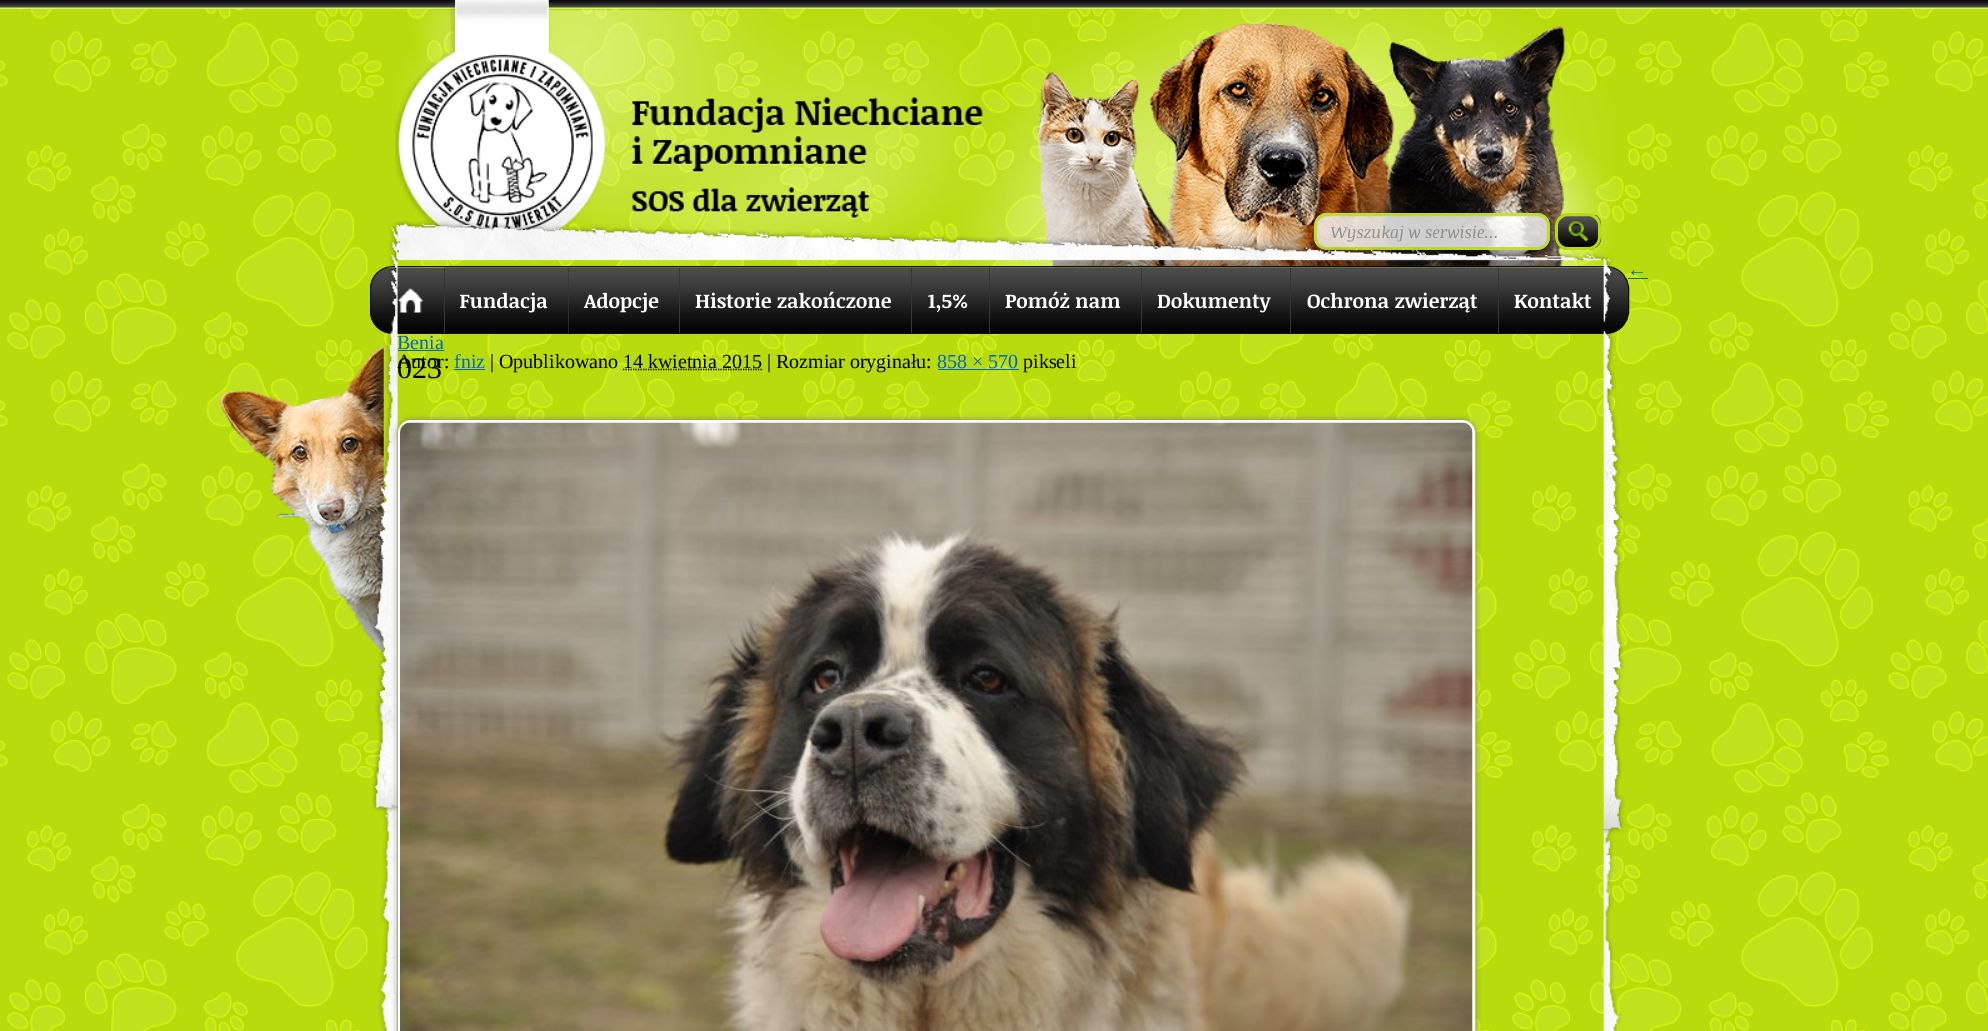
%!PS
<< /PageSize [1988 1031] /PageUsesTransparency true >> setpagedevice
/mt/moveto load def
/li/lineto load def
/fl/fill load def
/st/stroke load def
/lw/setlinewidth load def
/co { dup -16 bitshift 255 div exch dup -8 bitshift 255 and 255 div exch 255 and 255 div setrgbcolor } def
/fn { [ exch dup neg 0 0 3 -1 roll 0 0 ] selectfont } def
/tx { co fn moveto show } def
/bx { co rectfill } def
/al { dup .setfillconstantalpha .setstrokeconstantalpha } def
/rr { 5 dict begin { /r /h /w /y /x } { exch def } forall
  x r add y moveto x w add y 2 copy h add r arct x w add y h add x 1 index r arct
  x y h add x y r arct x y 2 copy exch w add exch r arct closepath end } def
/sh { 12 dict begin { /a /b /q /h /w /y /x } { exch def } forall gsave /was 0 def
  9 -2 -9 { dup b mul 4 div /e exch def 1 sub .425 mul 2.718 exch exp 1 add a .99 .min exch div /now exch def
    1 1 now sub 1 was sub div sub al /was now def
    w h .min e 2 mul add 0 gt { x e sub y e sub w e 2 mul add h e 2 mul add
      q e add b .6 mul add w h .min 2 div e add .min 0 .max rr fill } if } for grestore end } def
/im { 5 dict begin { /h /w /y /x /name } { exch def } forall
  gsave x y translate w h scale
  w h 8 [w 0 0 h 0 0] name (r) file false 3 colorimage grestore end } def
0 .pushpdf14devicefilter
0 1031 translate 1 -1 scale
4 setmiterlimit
0 0 1988 1031 16#FFFFFF bx
(media/1.raw) 0 8 1988 1023 im
(media/5.raw) 946 8 670 258 im
(media/2.raw) 0 0 1988 9 im
(media/3.raw) 204 346 180 351 im
(media/4.raw) 395 0 588 242 im
0.8 al
1314 213 236 37 13 rr fl
16#B7DB0C co
3 lw
1315.5 214.5 233 34 11.5 rr st
1 al
(media/6.raw) 1555 215 47 35 im
1556.5 214.5 43 34 11.5 rr st
(media/7.raw) 370 267 1259 67 im
16#0C0D0E co
1 lw
370.5 266.5 1258 67 22.5 rr st
(media/8.raw) 398 288 25 25 im
444 268 1 65 16#363636 bx
(media/9.raw) 445 267 124 1 im
568 268 1 65 16#363636 bx
(media/10.raw) 568 267 112 66 im
679 268 1 65 16#363636 bx
(media/11.raw) 680 267 233 1 im
911 268 1 65 16#363636 bx
(media/12.raw) 912 267 78 1 im
989 268 1 65 16#363636 bx
(media/13.raw) 990 267 153 1 im
1141 268 1 65 16#363636 bx
(media/14.raw) 1142 267 150 1 im
1290 268 1 65 16#363636 bx
(media/15.raw) 1291 267 208 1 im
1498 268 1 65 16#363636 bx
(media/16.raw) 1499 267 105 1 im
1628 278 20 1 16#0066CC bx
(Wyszukaj w serwisie...) 1331 238 /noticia-Italic 16.25 16#8E8D8D tx
(Fundacja) 459 308 /noticia-Bold 20 16#FFFFFF tx
(Adopcje) 584 308 /noticia-Bold 20 16#FFFFFF tx
(Historie zakończone) 695 308 /noticia-Bold 20 16#FFFFFF tx
(1,5%) 928 308 /noticia-Bold 20 16#FFFFFF tx
(Pomóż nam) 1005 308 /noticia-Bold 20 16#FFFFFF tx
(Dokumenty) 1157 308 /noticia-Bold 20 16#FFFFFF tx
(Ochrona zwierząt) 1307 308 /noticia-Bold 20 16#FFFFFF tx
(Kontakt) 1514 308 /noticia-Bold 20 16#FFFFFF tx
(media/17.raw) 372 220 1253 811 im
(←) 1627 276 /LiberationSerif-Regular 20 16#0066CC tx
(Benia) 397 349 /LiberationSerif-Regular 20 16#0066CC tx
398 350 46 1 16#0066CC bx
(fniz) 454 368 /LiberationSerif-Regular 20 16#0066CC tx
454 369 31 1 16#0066CC bx
(| Opublikowano) 490 368 /LiberationSerif-Regular 20 16#000000 tx
1.2 lw
[1.25 1.25] 0 setdash
623 369.5 mt 762 369.5 li st
(14 kwietnia 2015 | Rozmiar oryginału:) 623 368 /LiberationSerif-Regular 20 16#000000 tx
(858 × 570) 937 368 /LiberationSerif-Regular 20 16#0066CC tx
938 369 81 1 16#0066CC bx
(pikseli) 1023 368 /LiberationSerif-Regular 20 16#000000 tx
(023) 397 378 /LiberationSerif-Regular 30 16#000000 tx
(Autor:) 397 368 /LiberationSerif-Regular 20 16#000000 tx
16#777777 co
398 420 1077 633 13 3 1 sh
16#FFFFFF co
3 lw
[] 0 setdash
399.5 421.5 1074 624 11.5 rr st
(media/18.raw) 400 422 1073 609 im
.poppdf14devicefilter showpage
